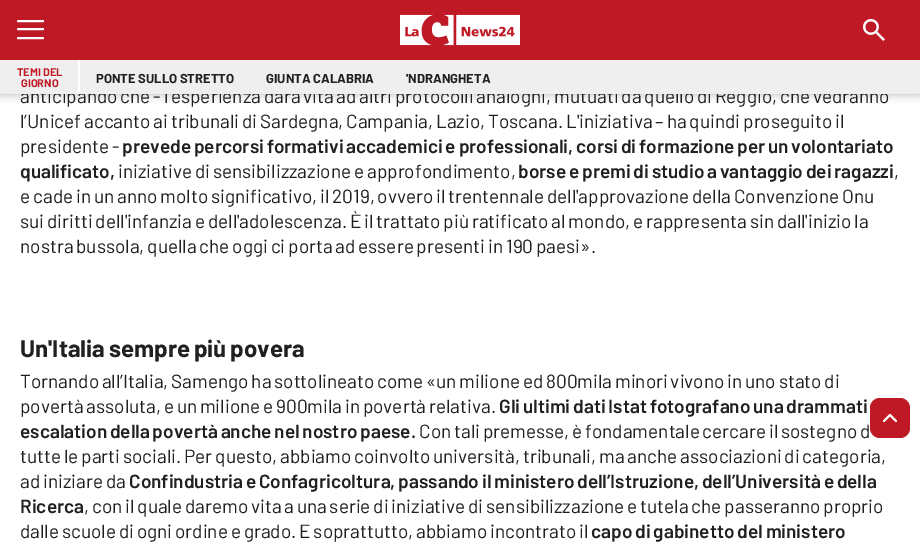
%!PS
<< /PageSize [920 548] /PageUsesTransparency true >> setpagedevice
/mt/moveto load def
/li/lineto load def
/fl/fill load def
/st/stroke load def
/lw/setlinewidth load def
/co { dup -16 bitshift 255 div exch dup -8 bitshift 255 and 255 div exch 255 and 255 div setrgbcolor } def
/fn { [ exch dup neg 0 0 3 -1 roll 0 0 ] selectfont } def
/tx { co fn moveto show } def
/bx { co rectfill } def
/al { dup .setfillconstantalpha .setstrokeconstantalpha } def
/rr { 5 dict begin { /r /h /w /y /x } { exch def } forall
  x r add y moveto x w add y 2 copy h add r arct x w add y h add x 1 index r arct
  x y h add x y r arct x y 2 copy exch w add exch r arct closepath end } def
/sh { 12 dict begin { /a /b /q /h /w /y /x } { exch def } forall gsave /was 0 def
  9 -2 -9 { dup b mul 4 div /e exch def 1 sub .425 mul 2.718 exch exp 1 add a .99 .min exch div /now exch def
    1 1 now sub 1 was sub div sub al /was now def
    w h .min e 2 mul add 0 gt { x e sub y e sub w e 2 mul add h e 2 mul add
      q e add b .6 mul add w h .min 2 div e add .min 0 .max rr fill } if } for grestore end } def
/im { 5 dict begin { /h /w /y /x /name } { exch def } forall
  gsave x y translate w h scale
  w h 8 [w 0 0 h 0 0] name (r) file false 3 colorimage grestore end } def
0 .pushpdf14devicefilter
0 548 translate 1 -1 scale
4 setmiterlimit
0 0 920 548 16#FFFFFF bx
16#000000 co
0 0 920 94 0 5 .3 sh
0 0 920 60 16#BE1924 bx
(media/1.raw) 400 14 120 32 im
(media/2.raw) 863 19 22 22 im
16#FFFFFF co
2 lw
1 setlinecap
18 21 mt 43 21 li 18 29 mt 43 29 li 18 38 mt 43 38 li st
16#BE1924 co
870 398 40 40 10 rr fl
16#FFFFFF co
1 setlinejoin
884 421 mt 890 415 li 896 421 li st
/Barlow-Regular 19 fn
16#212020 co
20 103 mt -1 0 32 (anticipando che - l’esperienza darà vita ad altri protocolli analoghi, mutuati da quello di Reggio, che vedranno) widthshow
80 60 840 34 16#EFEFEF bx
('NDRANGHETA) 406 83 /Barlow-Bold 13 16#212020 tx
(GIUNTA CALABRIA) 266 83 /Barlow-Bold 13 16#212020 tx
(PONTE SULLO STRETTO) 96 83 /Barlow-Bold 13 16#212020 tx
0 60 78 34 16#EFEFEF bx
(GIORNO) 21 87 /Barlow-Bold 11 16#BE1924 tx
(TEMI DEL) 17 76 /Barlow-Bold 11 16#BE1924 tx
78 60 2 34 16#FFFFFF bx
/Barlow-Regular 19 fn
16#212020 co
20 128 mt -1 0 32 (l’Unicef accanto ai tribunali di Sardegna, Campania, Lazio, Toscana. L'iniziativa – ha quindi proseguito il) widthshow
20 153 mt -1 0 32 (presidente -) widthshow
/Barlow-SemiBold 19 fn
122 153 mt -1 0 32 (prevede percorsi formativi accademici e professionali, corsi di formazione per un volontariato) widthshow
(qualificato,) 20 178 /Barlow-SemiBold 19 16#212020 tx
/Barlow-Regular 19 fn
118 178 mt -1 0 32 (iniziative di sensibilizzazione e approfondimento,) widthshow
/Barlow-SemiBold 19 fn
518 178 mt -1 0 32 (borse e premi di studio a vantaggio dei ragazzi) widthshow
(,) 894 178 /Barlow-Regular 19 16#212020 tx
20 203 mt -1 0 32 (e cade in un anno molto significativo, il 2019, ovvero il trentennale dell'approvazione della Convenzione Onu) widthshow
20 228 mt -1 0 32 (sui diritti dell'infanzia e dell'adolescenza. È il trattato più ratificato al mondo, e rappresenta sin dall'inizio la) widthshow
20 253 mt -1 0 32 (nostra bussola, quella che oggi ci porta ad essere presenti in 190 paesi».) widthshow
/Barlow-Bold 24 fn
20 357 mt -1 0 32 (Un'Italia sempre più povera) widthshow
/Barlow-Regular 19 fn
20 388 mt -1 0 32 (Tornando all’Italia, Samengo ha sottolineato come «un milione ed 800mila minori vivono in uno stato di) widthshow
20 413 mt -1 0 32 (povertà assoluta, e un milione e 900mila in povertà relativa.) widthshow
/Barlow-SemiBold 19 fn
499 413 mt -1 0 32 (Gli ultimi dati Istat fotografano una drammati) widthshow
20 438 mt -1 0 32 (escalation della povertà anche nel nostro paese.) widthshow
/Barlow-Regular 19 fn
419 438 mt -1 0 32 (Con tali premesse, è fondamentale cercare il sostegno d) widthshow
20 463 mt -1 0 32 (tutte le parti sociali. Per questo, abbiamo coinvolto università, tribunali, ma anche associazioni di categoria,) widthshow
20 488 mt -1 0 32 (ad iniziare da) widthshow
/Barlow-SemiBold 19 fn
129 488 mt -1 0 32 (Confindustria e Confagricoltura, passando il ministero dell’Istruzione, dell’Università e della) widthshow
(Ricerca) 20 513 /Barlow-SemiBold 19 16#212020 tx
/Barlow-Regular 19 fn
84 513 mt -1 0 32 (, con il quale daremo vita a una serie di iniziative di sensibilizzazione e tutela che passeranno proprio) widthshow
20 538 mt -1 0 32 (dalle scuole di ogni ordine e grado. E soprattutto, abbiamo incontrato il) widthshow
/Barlow-SemiBold 19 fn
591 538 mt -1 0 32 (capo di gabinetto del ministero) widthshow
.poppdf14devicefilter showpage
